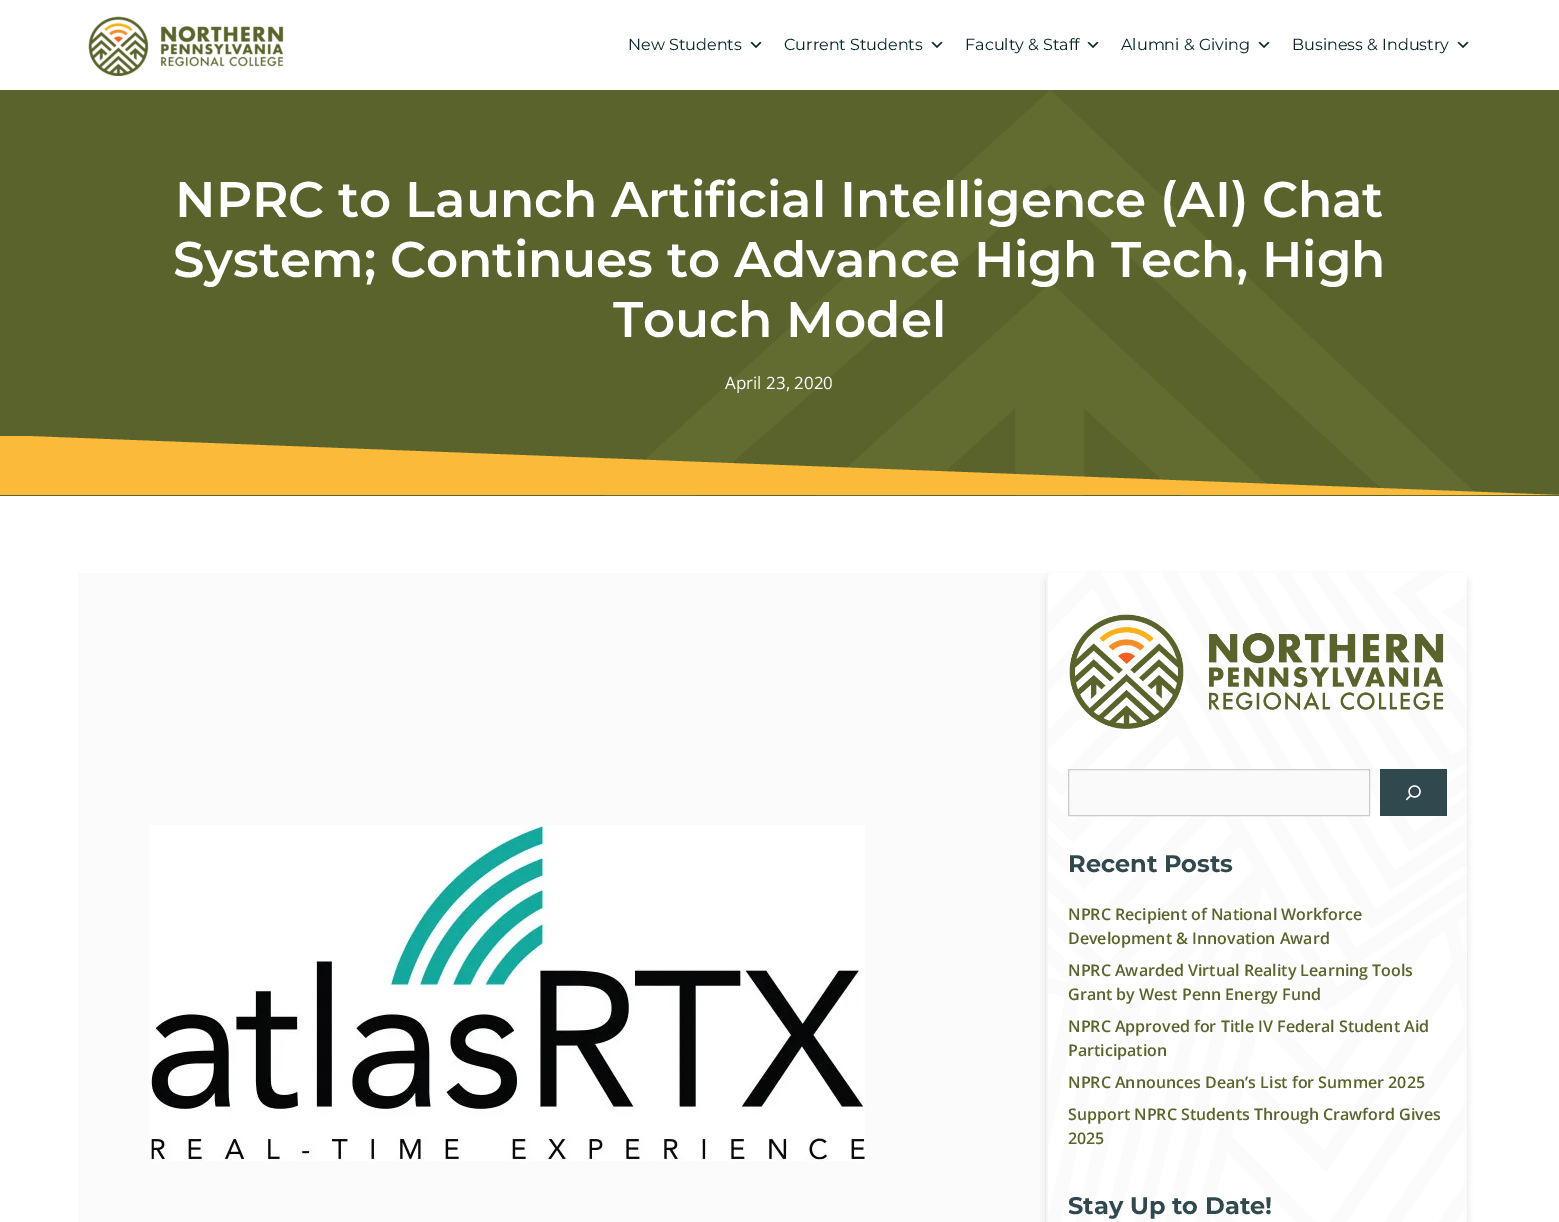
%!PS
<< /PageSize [1559 1222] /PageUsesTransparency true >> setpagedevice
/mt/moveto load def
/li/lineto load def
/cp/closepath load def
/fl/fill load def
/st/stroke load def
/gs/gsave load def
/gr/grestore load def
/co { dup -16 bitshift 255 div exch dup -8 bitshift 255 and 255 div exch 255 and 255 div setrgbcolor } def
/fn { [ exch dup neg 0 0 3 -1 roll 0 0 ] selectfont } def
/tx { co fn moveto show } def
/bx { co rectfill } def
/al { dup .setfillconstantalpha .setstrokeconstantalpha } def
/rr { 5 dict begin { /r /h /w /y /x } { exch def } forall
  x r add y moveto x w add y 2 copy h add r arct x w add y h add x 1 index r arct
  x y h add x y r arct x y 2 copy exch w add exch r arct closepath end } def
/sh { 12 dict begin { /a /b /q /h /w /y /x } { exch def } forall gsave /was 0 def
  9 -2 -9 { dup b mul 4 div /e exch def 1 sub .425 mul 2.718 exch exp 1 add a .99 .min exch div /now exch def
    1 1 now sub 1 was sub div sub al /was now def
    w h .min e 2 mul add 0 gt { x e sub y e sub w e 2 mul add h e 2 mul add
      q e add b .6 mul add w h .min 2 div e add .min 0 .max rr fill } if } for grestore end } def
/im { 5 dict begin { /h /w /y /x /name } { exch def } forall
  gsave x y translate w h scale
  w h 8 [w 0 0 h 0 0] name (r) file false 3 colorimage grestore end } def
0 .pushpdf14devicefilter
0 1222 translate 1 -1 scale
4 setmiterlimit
0 0 1559 1222 16#FFFFFF bx
(media/1.raw) 88 16 196 60 im
(media/2.raw) 750 41 12 7 im
(media/2.raw) 931 41 12 7 im
(media/2.raw) 1087 41 12 7 im
(media/2.raw) 1258 41 12 7 im
(media/2.raw) 1457 41 12 7 im
(media/3.raw) 0 90 1559 406 im
gs
0 436 1559 60 rectclip
16#FCBA3A co
0 435 mt 1559 495 li 0 495 li cp fl
gr
78 573 968 649 16#FBFBFB bx
(media/4.raw) 149 825 716 336 im
16#000000 co
1051 582 411 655 0 5 .35 sh
(media/5.raw) 1048 573 419 649 im
1046 573 2 649 16#F5F5F5 bx
(media/6.raw) 1069 614 375 115 im
16#FAFAFA co
1068.5 769.5 mt 1369.5 769.5 li 1369.5 815.5 li 1068.5 815.5 li cp gs fl gr
16#CCCCCC co
st
1380 769 67 47 16#30494F bx
(media/7.raw) 1405 785 16 16 im
(New Students) 628 50 /Montserrat-Regular 16 16#07272D tx
(Current Students) 784 50 /Montserrat-Regular 16 16#07272D tx
(Faculty & Staff) 965 50 /Montserrat-Regular 16 16#07272D tx
(Alumni & Giving) 1121 50 /Montserrat-Regular 16 16#07272D tx
(Business & Industry) 1292 50 /Montserrat-Regular 16 16#07272D tx
(NPRC to Launch Artificial Intelligence \(AI\) Chat) 175 217 /Montserrat-SemiBold 50 16#FFFFFF tx
(System; Continues to Advance High Tech, High) 173 277 /Montserrat-SemiBold 50 16#FFFFFF tx
(Touch Model) 613 337 /Montserrat-SemiBold 50 16#FFFFFF tx
(April 23, 2020) 725 389 /OpenSans-Regular 17 16#FFFFFF tx
(Recent Posts) 1068 872 /Montserrat-Bold 24 16#30494F tx
(NPRC Recipient of National Workforce) 1068 920 /OpenSans-SemiBold 16 16#59632B tx
(Development & Innovation Award) 1068 944 /OpenSans-SemiBold 16 16#59632B tx
(NPRC Awarded Virtual Reality Learning Tools) 1068 976 /OpenSans-SemiBold 16 16#59632B tx
(Grant by West Penn Energy Fund) 1068 1000 /OpenSans-SemiBold 16 16#59632B tx
(NPRC Approved for Title IV Federal Student Aid) 1068 1032 /OpenSans-SemiBold 16 16#59632B tx
(Participation) 1068 1056 /OpenSans-SemiBold 16 16#59632B tx
(NPRC Announces Dean’s List for Summer 2025) 1068 1088 /OpenSans-SemiBold 16 16#59632B tx
(Support NPRC Students Through Crawford Gives) 1068 1120 /OpenSans-SemiBold 16 16#59632B tx
(2025) 1068 1144 /OpenSans-SemiBold 16 16#59632B tx
(Stay Up to Date!) 1068 1214 /Montserrat-Bold 24 16#30494F tx
.poppdf14devicefilter showpage
